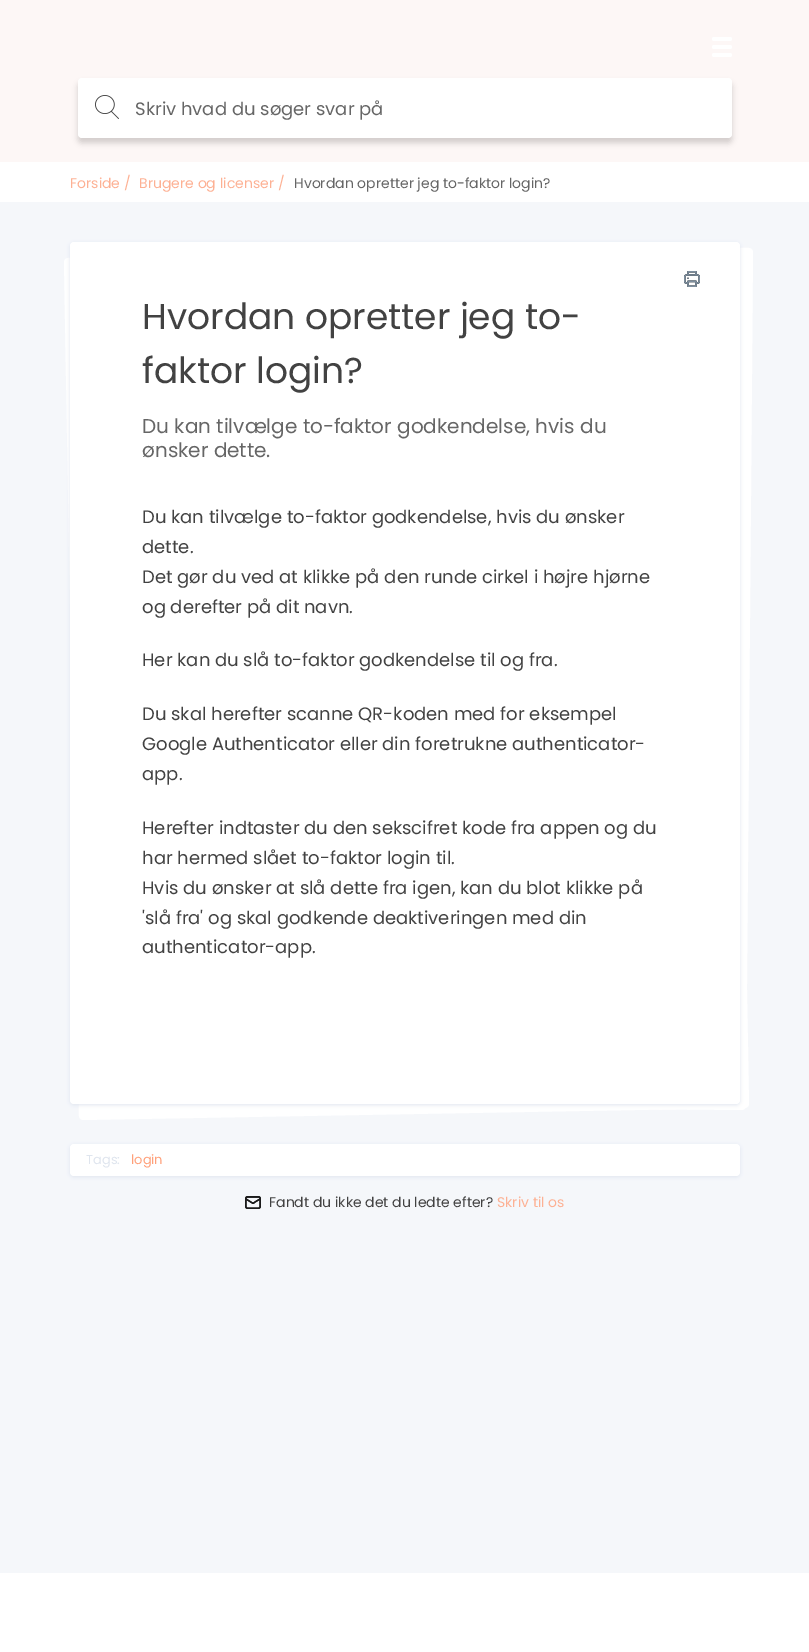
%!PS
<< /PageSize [809 1652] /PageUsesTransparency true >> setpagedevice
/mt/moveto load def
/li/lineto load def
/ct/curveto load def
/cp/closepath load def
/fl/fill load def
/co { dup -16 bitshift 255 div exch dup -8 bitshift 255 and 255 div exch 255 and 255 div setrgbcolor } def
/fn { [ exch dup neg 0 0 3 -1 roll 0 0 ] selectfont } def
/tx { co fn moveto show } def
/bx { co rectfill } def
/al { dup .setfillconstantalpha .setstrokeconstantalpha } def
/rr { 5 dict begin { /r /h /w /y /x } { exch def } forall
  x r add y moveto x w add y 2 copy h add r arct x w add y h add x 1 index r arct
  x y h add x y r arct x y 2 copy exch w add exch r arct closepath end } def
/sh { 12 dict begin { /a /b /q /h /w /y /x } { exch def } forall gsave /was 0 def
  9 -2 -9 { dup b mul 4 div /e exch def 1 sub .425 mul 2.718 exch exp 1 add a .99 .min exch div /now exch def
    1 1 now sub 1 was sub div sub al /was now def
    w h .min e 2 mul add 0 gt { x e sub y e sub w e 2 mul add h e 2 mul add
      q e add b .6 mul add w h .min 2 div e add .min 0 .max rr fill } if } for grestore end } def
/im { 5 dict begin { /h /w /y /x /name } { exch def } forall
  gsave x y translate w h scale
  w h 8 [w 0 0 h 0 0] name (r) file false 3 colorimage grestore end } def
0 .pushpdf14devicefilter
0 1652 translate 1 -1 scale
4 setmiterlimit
0 0 809 1652 16#F5F7FA bx
0 0 809 162 16#FDF7F6 bx
16#FFFFFF co
712 37 20 4 2 rr fl
712 45 20 4 2 rr fl
712 53 20 4 2 rr fl
16#000000 co
78 83 654 60 4 3 .17 sh
16#FFFFFF co
78 78 654 60 4 rr fl
(media/1.raw) 95 95 24 24 im
0 162 809 40 16#FFFFFF bx
87 242 mt 749 248 li 751 248 753 250 753 252 ct 746 1106 li 746 1108 744 1110 742 1110 ct 80 1104 li 78 1104 76 1102 76 1100 ct 83 246 li 83 244 85 242 87 242 ct cp fl
68 258 mt 730 246 li 732 246 734 248 734 250 ct 749 1104 li 749 1106 747 1108 745 1108 ct 83 1120 li 81 1120 79 1118 79 1116 ct 64 262 li 64 260 66 258 68 258 ct cp fl
16#DFE5EE co
70 243 670 862 4 2 1 sh
16#FFFFFF co
70 242 670 862 4 rr fl
(media/2.raw) 684 271 16 16 im
16#DFE5EE co
70 1145 670 32 4 2 1 sh
16#FFFFFF co
70 1144 670 32 4 rr fl
(media/3.raw) 245 1196 16 13 im
0 1573 809 79 16#FFFFFF bx
(Skriv hvad du søger svar på) 135 115 /Poppins-Regular 18 16#666666 tx
(Forside /) 70 188 /Poppins-Regular 14 16#FDB194 tx
(Brugere og licenser /) 139 188 /Poppins-Regular 14 16#FDB194 tx
(Hvordan opretter jeg to-faktor login?) 294 188 /Poppins-Regular 14 16#666666 tx
(Hvordan opretter jeg to-) 142 329 /Poppins-Regular 36 16#424242 tx
(faktor login?) 142 383 /Poppins-Regular 36 16#424242 tx
(Du kan tilvælge to-faktor godkendelse, hvis du) 142 433 /Poppins-Regular 20 16#666666 tx
(ønsker dette.) 142 457 /Poppins-Regular 20 16#666666 tx
(Du kan tilvælge to-faktor godkendelse, hvis du ønsker) 142 523 /Poppins-Regular 18 16#424242 tx
(dette.) 142 553 /Poppins-Regular 18 16#424242 tx
(Det gør du ved at klikke på den runde cirkel i højre hjørne) 142 583 /Poppins-Regular 18 16#424242 tx
(og derefter på dit navn.) 142 613 /Poppins-Regular 18 16#424242 tx
(Her kan du slå to-faktor godkendelse til og fra.) 142 666 /Poppins-Regular 18 16#424242 tx
(Du skal herefter scanne QR-koden med for eksempel) 142 720 /Poppins-Regular 18 16#424242 tx
(Google Authenticator eller din foretrukne authenticator-) 142 750 /Poppins-Regular 18 16#424242 tx
(app.) 142 780 /Poppins-Regular 18 16#424242 tx
(Herefter indtaster du den sekscifret kode fra appen og du) 142 834 /Poppins-Regular 18 16#424242 tx
(har hermed slået to-faktor login til.) 142 864 /Poppins-Regular 18 16#424242 tx
(Hvis du ønsker at slå dette fra igen, kan du blot klikke på) 142 894 /Poppins-Regular 18 16#424242 tx
('slå fra' og skal godkende deaktiveringen med din) 142 924 /Poppins-Regular 18 16#424242 tx
(authenticator-app.) 142 953 /Poppins-Regular 18 16#424242 tx
(Tags:) 86 1164 /Poppins-Regular 13 16#DFE5EE tx
(login) 131 1164 /Poppins-Regular 13 16#FFA07A tx
(Fandt du ikke det du ledte efter?) 269 1207 /Poppins-Regular 14 16#424242 tx
(Skriv til os) 497 1207 /Poppins-Regular 14 16#FDB194 tx
.poppdf14devicefilter showpage
